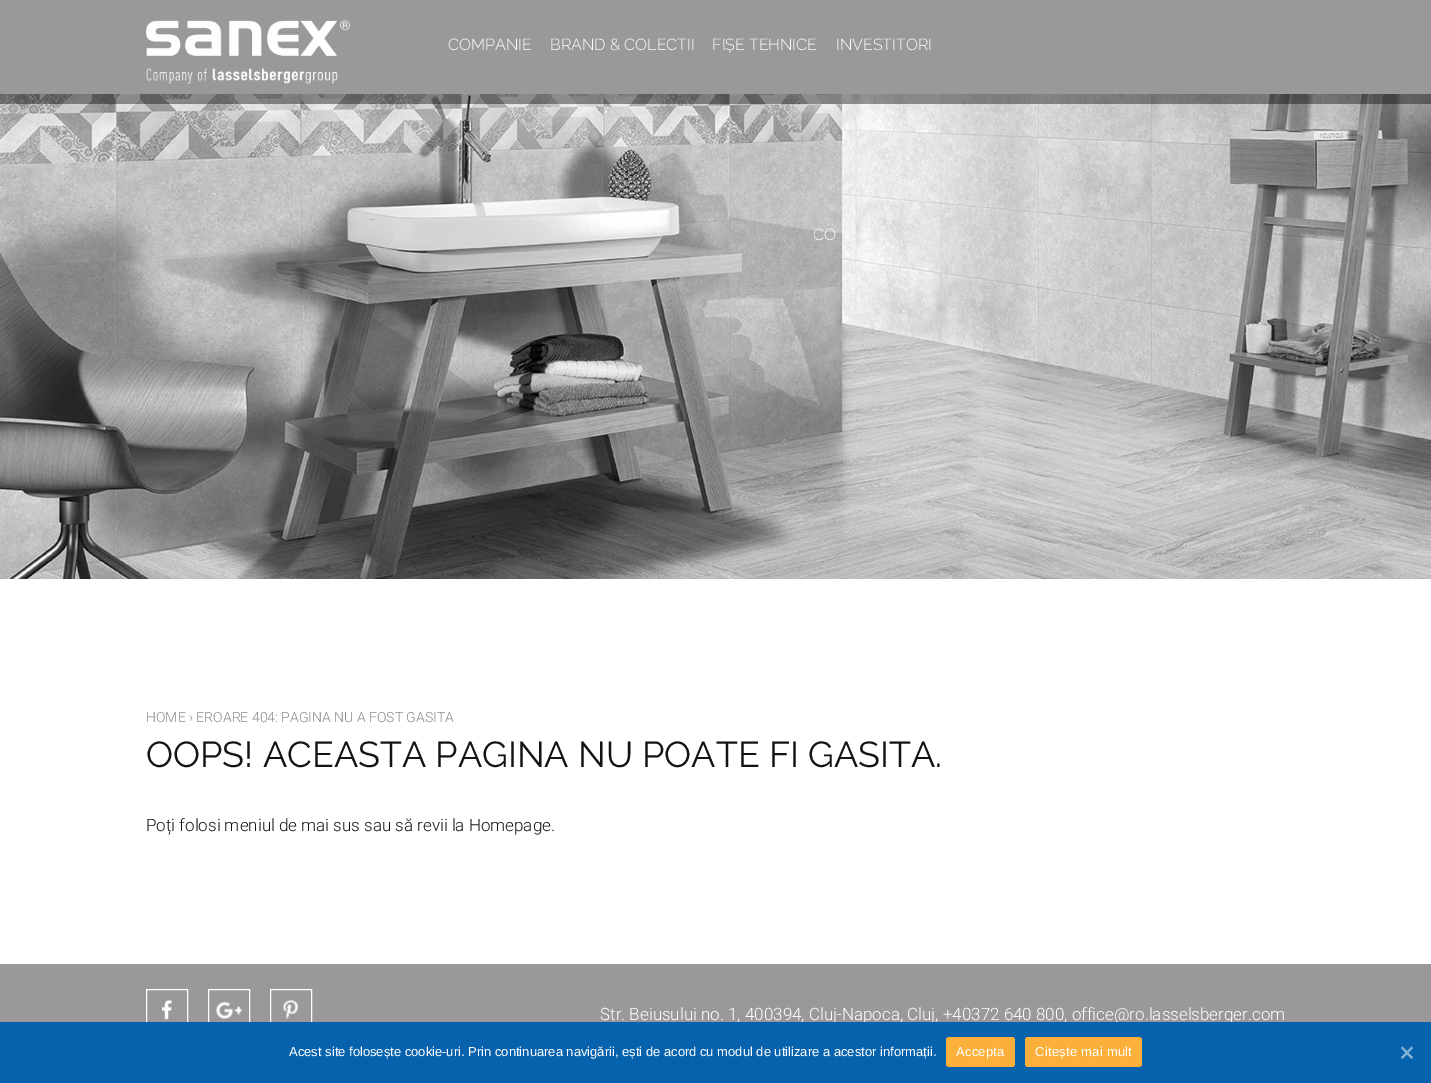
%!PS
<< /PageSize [1431 1083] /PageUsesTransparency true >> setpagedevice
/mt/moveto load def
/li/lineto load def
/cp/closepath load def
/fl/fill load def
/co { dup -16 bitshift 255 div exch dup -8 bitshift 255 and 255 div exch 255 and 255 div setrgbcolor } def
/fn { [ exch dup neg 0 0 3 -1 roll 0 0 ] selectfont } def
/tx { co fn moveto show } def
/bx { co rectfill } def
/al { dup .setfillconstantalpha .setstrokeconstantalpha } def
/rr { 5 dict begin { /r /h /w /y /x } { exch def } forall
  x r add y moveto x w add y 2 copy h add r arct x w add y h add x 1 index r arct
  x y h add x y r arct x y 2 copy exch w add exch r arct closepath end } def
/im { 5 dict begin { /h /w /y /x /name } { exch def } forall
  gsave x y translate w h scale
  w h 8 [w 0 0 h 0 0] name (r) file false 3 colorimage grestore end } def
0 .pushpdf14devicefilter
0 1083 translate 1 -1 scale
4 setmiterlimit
0 0 1431 1083 16#FFFFFF bx
(media/2.raw) 0 94 1431 485 im
0.4 al
0 0 1431 104 16#000000 bx
1 al
(media/1.raw) 146 20 204 64 im
0 964 1431 58 16#999999 bx
16#FFFFFF co
146.5 989.5 41 41 rectstroke
(media/3.raw) 162 1000 10 20 im
208.5 989.5 41 41 rectstroke
(media/4.raw) 216 1001 26 18 im
270.5 989.5 41 41 rectstroke
(media/5.raw) 283 1000 16 20 im
(COMPANIE) 448 50 /Raleway-Light 16 16#FFFFFF tx
(BRAND & COLECTII) 550 50 /Raleway-Light 16 16#FFFFFF tx
(FIȘE TEHNICE) 712 50 /Raleway-Light 16 16#FFFFFF tx
(INVESTITORI) 836 50 /Raleway-Light 16 16#FFFFFF tx
(CO) 813 240 /Raleway-Light 16 16#FFFFFF tx
(HOME › EROARE 404: PAGINA NU A FOST GASITA) 146 722 /Roboto-Light 14 16#888888 tx
(OOPS! ACEASTA PAGINA NU POATE FI GASITA.) 146 767 /Raleway-Regular 36 16#131313 tx
(Poți folosi meniul de mai sus sau să revii la Homepage.) 146 831 /Roboto-Light 17 16#131313 tx
(Str. Beiusului no. 1, 400394, Cluj-Napoca, Cluj, +40372 640 800, office@ro.lasselsberger.com) 600 1020 /Roboto-Light 17 16#FFFFFF tx
0 1022 1431 61 16#0662AD bx
(Acest site folosește cookie-uri. Prin continuarea navigării, ești de acord cu modul de utilizare a acestor informații.) 289 1056 /LiberationSans-Regular 13 16#FFFFFF tx
16#FBB03B co
946 1037 69 30 3 rr fl
16#FFFFFF co
956 1056 mt .25 0 (Accepta) ashow
16#FBB03B co
1025 1037 117 30 3 rr fl
16#FFFFFF co
1035 1056 mt .25 0 (Citește mai mult) ashow
16#83B1D6 co
1411.5 1046.5 mt 1413 1048 li 1402.5 1059 li 1401 1057.5 li cp fl
1401 1048 mt 1402.5 1046.5 li 1413 1057.5 li 1411.5 1059 li cp fl
.poppdf14devicefilter showpage
